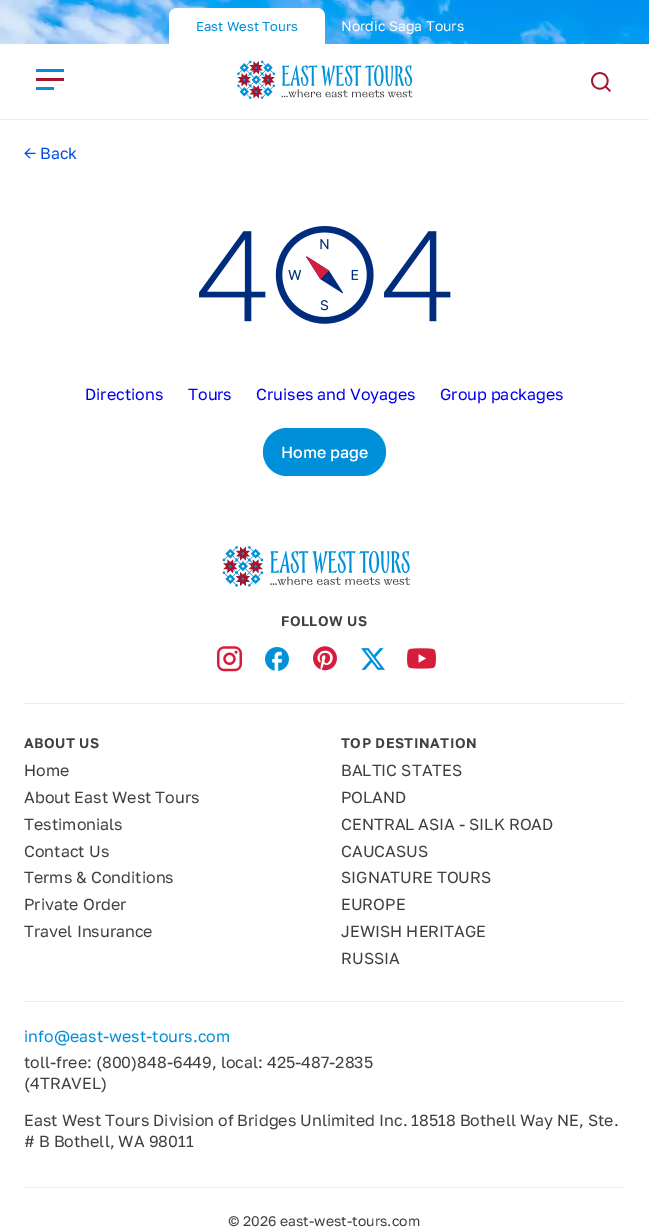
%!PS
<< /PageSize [649 1231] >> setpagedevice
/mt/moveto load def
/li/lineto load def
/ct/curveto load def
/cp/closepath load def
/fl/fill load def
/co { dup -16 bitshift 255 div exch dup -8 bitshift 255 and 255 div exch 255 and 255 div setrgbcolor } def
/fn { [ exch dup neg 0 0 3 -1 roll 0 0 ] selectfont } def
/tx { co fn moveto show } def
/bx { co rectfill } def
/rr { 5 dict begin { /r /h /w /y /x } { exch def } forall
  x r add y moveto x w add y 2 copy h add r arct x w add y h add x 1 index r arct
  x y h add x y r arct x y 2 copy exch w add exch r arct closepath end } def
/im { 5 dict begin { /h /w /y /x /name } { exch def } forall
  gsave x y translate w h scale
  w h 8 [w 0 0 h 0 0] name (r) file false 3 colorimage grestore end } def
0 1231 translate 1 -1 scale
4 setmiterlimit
0 0 649 1231 16#FFFFFF bx
(media/1.raw) 0 0 649 44 im
177 8 mt 317 8 li 321.5 8 325 11.5 325 16 ct 325 44 li 169 44 li 169 16 li 169 11.5 172.5 8 177 8 ct cp fl
0 119 649 1 16#EAEAEA bx
36 78 28 3 16#A3162D bx
36 69 28 3 16#0090D9 bx
36 87 18 3 16#0090D9 bx
(media/2.raw) 237 60 176 39 im
(media/3.raw) 591 72 20 20 im
(media/4.raw) 199 226 252 98 im
263 428 123 48 24 rr fl
24 703 601 1 16#EAEAEA bx
(media/5.raw) 222 546 188 41 im
(media/6.raw) 217 646 25 26 im
(media/7.raw) 265 647 24 24 im
(media/8.raw) 313 646 24 25 im
(media/9.raw) 361 648 24 22 im
(media/10.raw) 407 648 29 21 im
24 1001 601 1 16#EAEAEA bx
24 1187 601 1 16#EAEAEA bx
(East West Tours) 196 31 /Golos-Regular 13 16#0090D9 tx
(Nordic Saga Tours) 341 31 /Golos-Regular 14 16#FFFFFF tx
(← Back) 24 159 /Golos-Regular 16 16#004DE8 tx
(Directions) 85 400 /Golos-Regular 16 16#0000EE tx
(Tours) 188 400 /Golos-Regular 16 16#0000EE tx
(Cruises and Voyages) 256 400 /Golos-Regular 16 16#0000EE tx
(Group packages) 440 400 /Golos-Regular 16 16#0000EE tx
(Home page) 281 458 /Golos-Medium 16 16#FFFFFF tx
/Golos-SemiBold 14 fn
16#404040 co
281 626 mt .5 0 (FOLLOW US) ashow
24 748 mt .5 0 (ABOUT US) ashow
(Home) 24 776 /Golos-Regular 16 16#404040 tx
(About East West Tours) 24 803 /Golos-Regular 16 16#404040 tx
(Testimonials) 24 830 /Golos-Regular 16 16#404040 tx
(Contact Us) 24 857 /Golos-Regular 16 16#404040 tx
(Terms & Conditions) 24 883 /Golos-Regular 16 16#404040 tx
(Private Order) 24 910 /Golos-Regular 16 16#404040 tx
(Travel Insurance) 24 937 /Golos-Regular 16 16#404040 tx
/Golos-SemiBold 14 fn
341 748 mt .5 0 (TOP DESTINATION) ashow
(BALTIC STATES) 341 776 /Golos-Regular 16 16#404040 tx
(POLAND) 341 803 /Golos-Regular 16 16#404040 tx
(CENTRAL ASIA - SILK ROAD) 341 830 /Golos-Regular 16 16#404040 tx
(CAUCASUS) 341 857 /Golos-Regular 16 16#404040 tx
(SIGNATURE TOURS) 341 883 /Golos-Regular 16 16#404040 tx
(EUROPE) 341 910 /Golos-Regular 16 16#404040 tx
(JEWISH HERITAGE) 341 937 /Golos-Regular 16 16#404040 tx
(RUSSIA) 341 964 /Golos-Regular 16 16#404040 tx
(info@east-west-tours.com) 24 1042 /Golos-Regular 16 16#0090D9 tx
(toll-free: \(800\)848-6449, local: 425-487-2835) 24 1068 /Golos-Regular 16 16#404040 tx
(\(4TRAVEL\)) 24 1089 /Golos-Regular 16 16#404040 tx
(East West Tours Division of Bridges Unlimited Inc. 18518 Bothell Way NE, Ste.) 24 1126 /Golos-Regular 16 16#404040 tx
(# B Bothell, WA 98011) 24 1147 /Golos-Regular 16 16#404040 tx
(© 2026 east-west-tours.com) 228 1226 /Golos-Regular 14 16#404040 tx
showpage
